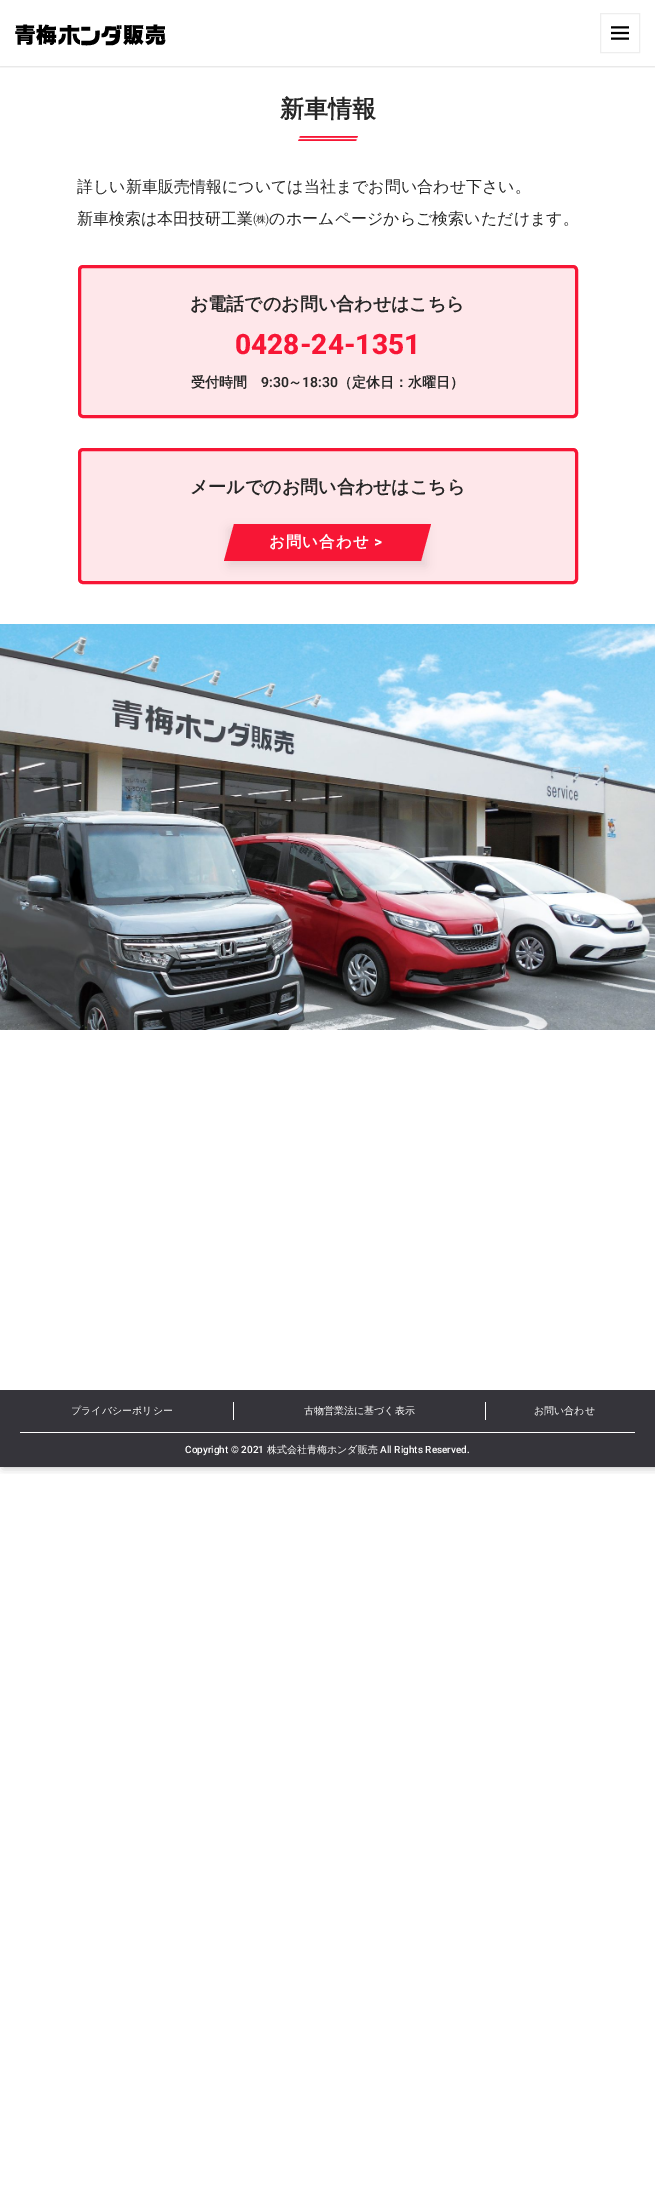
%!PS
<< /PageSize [655 2207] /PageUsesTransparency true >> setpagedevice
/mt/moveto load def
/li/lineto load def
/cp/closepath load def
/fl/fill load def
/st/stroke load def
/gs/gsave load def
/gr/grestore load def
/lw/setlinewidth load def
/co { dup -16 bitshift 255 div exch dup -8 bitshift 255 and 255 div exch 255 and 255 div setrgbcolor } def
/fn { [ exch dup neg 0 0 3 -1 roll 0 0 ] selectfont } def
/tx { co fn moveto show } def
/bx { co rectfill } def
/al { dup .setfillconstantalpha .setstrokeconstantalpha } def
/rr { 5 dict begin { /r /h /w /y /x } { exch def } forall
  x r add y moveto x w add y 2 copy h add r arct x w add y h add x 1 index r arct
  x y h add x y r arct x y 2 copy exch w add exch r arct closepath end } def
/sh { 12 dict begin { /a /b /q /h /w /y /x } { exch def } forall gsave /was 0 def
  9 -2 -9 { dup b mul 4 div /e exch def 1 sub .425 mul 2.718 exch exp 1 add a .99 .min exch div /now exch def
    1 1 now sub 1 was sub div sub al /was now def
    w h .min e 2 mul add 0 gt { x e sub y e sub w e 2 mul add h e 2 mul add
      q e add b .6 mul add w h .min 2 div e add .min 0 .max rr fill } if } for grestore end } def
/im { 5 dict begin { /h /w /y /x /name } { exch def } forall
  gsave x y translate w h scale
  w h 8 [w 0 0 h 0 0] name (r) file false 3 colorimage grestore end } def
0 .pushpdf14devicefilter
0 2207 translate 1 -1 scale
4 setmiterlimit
0 0 655 2207 16#FFFFFF bx
gs
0 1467 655 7 rectclip
16#000000 co
3 0 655 1467 0 5 .3 sh
gr
gs
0 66 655 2 rectclip
16#000000 co
0 0 655 66 0 1.5 .2 sh
gr
(media/1.raw) 15 24 151 22 im
16#EEEEEE co
600.5 13.5 39 39 rectstroke
(media/2.raw) 611 26 18 14 im
(media/3.raw) 298 136 60 5 im
16#FEE7EA co
79.5 266.5 497 150 3.5 rr gs fl gr
16#F71635 co
3 lw
st
16#FEE7EA co
79.5 449.5 497 133 3.5 rr gs fl gr
16#F71635 co
st
16#000000 co
229 529 197 37 0 5 .1 sh
16#F71635 co
234 524 mt 431 524 li 421 561 li 224 561 li cp fl
(media/4.raw) 0 624 655 406 im
0 1390 655 77 16#35343A bx
233 1402 1 18 16#FFFFFF bx
485 1402 1 18 16#FFFFFF bx
20 1432 615 1 16#FFFFFF bx
(新車情報) 280 117 /WenQuanYiZenHei-Bold 24 16#262626 tx
(詳しい新車販売情報については当社までお問い合わせ下さい。) 77 192 /WenQuanYiZenHei-Medium 16 16#262626 tx
(新車検索は本田技研工業㈱のホームページからご検索いただけます。) 77 224 /WenQuanYiZenHei-Medium 16 16#262626 tx
(お電話でのお問い合わせはこちら) 190 310 /WenQuanYiZenHei-Bold 18 16#262626 tx
(0428-24-1351) 235 354 /Roboto-ExtraBold 28 16#F71635 tx
(受付時間) 191 387 /WenQuanYiZenHei-Bold 14 16#262626 tx
(9:30) 261 387 /Roboto-SemiBold 14 16#262626 tx
(～) 288 387 /WenQuanYiZenHei-Bold 14 16#262626 tx
(18:30) 302 387 /Roboto-SemiBold 14 16#262626 tx
(（定休日：水曜日）) 338 387 /WenQuanYiZenHei-Bold 14 16#262626 tx
(メールでのお問い合わせはこちら) 190 493 /WenQuanYiZenHei-Bold 18 16#262626 tx
/WenQuanYiZenHei-Bold 15.5 fn
16#FFFFFF co
269 547 mt 1 0 (お問い合わせ) ashow
/Roboto-Bold 15.5 fn
374 547 mt 1 0 (>) ashow
(プライバシーポリシー) 71 1414 /WenQuanYiZenHei-Medium 10 16#FFFFFF tx
(古物営業法に基づく表示) 304 1414 /WenQuanYiZenHei-Medium 10 16#FFFFFF tx
(お問い合わせ) 534 1414 /WenQuanYiZenHei-Medium 10 16#FFFFFF tx
(Copyright © 2021) 185 1453 /Roboto-Medium 10 16#FFFFFF tx
(株式会社青梅ホンダ販売) 267 1453 /WenQuanYiZenHei-Medium 10 16#FFFFFF tx
(All Rights Reserved.) 380 1453 /Roboto-Medium 10 16#FFFFFF tx
.poppdf14devicefilter showpage
